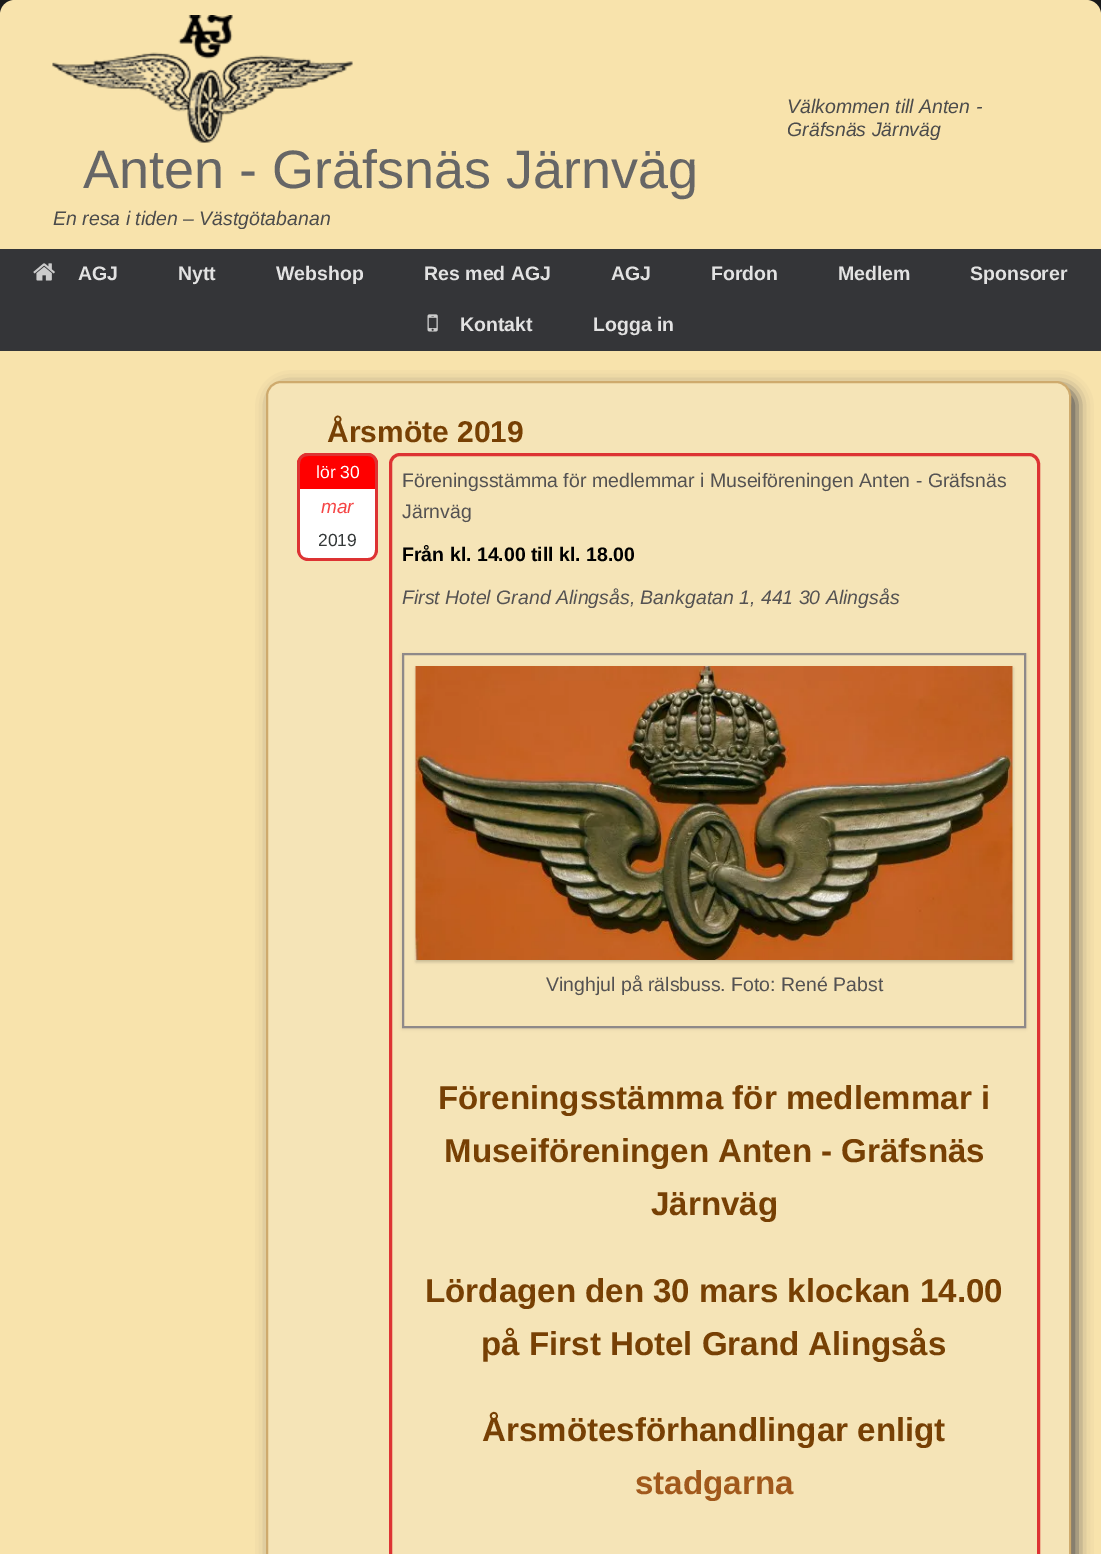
%!PS
<< /PageSize [1101 1554] /PageUsesTransparency true >> setpagedevice
/mt/moveto load def
/li/lineto load def
/ct/curveto load def
/cp/closepath load def
/fl/fill load def
/st/stroke load def
/gs/gsave load def
/gr/grestore load def
/lw/setlinewidth load def
/co { dup -16 bitshift 255 div exch dup -8 bitshift 255 and 255 div exch 255 and 255 div setrgbcolor } def
/fn { [ exch dup neg 0 0 3 -1 roll 0 0 ] selectfont } def
/tx { co fn moveto show } def
/bx { co rectfill } def
/al { dup .setfillconstantalpha .setstrokeconstantalpha } def
/rr { 5 dict begin { /r /h /w /y /x } { exch def } forall
  x r add y moveto x w add y 2 copy h add r arct x w add y h add x 1 index r arct
  x y h add x y r arct x y 2 copy exch w add exch r arct closepath end } def
/sh { 12 dict begin { /a /b /q /h /w /y /x } { exch def } forall gsave /was 0 def
  9 -2 -9 { dup b mul 4 div /e exch def 1 sub .425 mul 2.718 exch exp 1 add a .99 .min exch div /now exch def
    1 1 now sub 1 was sub div sub al /was now def
    w h .min e 2 mul add 0 gt { x e sub y e sub w e 2 mul add h e 2 mul add
      q e add b .6 mul add w h .min 2 div e add .min 0 .max rr fill } if } for grestore end } def
/im { 5 dict begin { /h /w /y /x /name } { exch def } forall
  gsave x y translate w h scale
  w h 8 [w 0 0 h 0 0] name (r) file false 3 colorimage grestore end } def
0 .pushpdf14devicefilter
0 1554 translate 1 -1 scale
4 setmiterlimit
0 0 1101 1554 16#FFFFFF bx
(media/1.raw) 0 0 1101 15 im
16#F8E3AC co
15 0 mt 1086 0 li 1094.5 0 1101 6.5 1101 15 ct 1101 351 li 0 351 li 0 15 li 0 6.5 6.5 0 15 0 ct cp fl
(media/2.raw) 52 15 301 128 im
0 249 1101 102 16#343538 bx
(media/3.raw) 33 263 22 18 im
(media/4.raw) 427 314 11 18 im
0 351 1101 1203 16#F8E3AC bx
16#545252 co
272 387 805 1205 15 7.5 1 sh
16#F5E4B7 co
267 382 803 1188 14 rr gs fl gr
16#CEAA6D co
2 lw
st
16#FF0000 co
308 453 mt 367 453 li 373 453 378 458 378 464 ct 378 489 li 297 489 li 297 464 li 297 458 302 453 308 453 ct cp fl
16#DD3333 co
308 453 mt 368 453 li 373 453 378 458 378 464 ct 378 489 li 297 489 li 297 464 li 297 458 302 453 308 453 ct cp 308 456 mt 368 456 li 372 456 375 459 375 464 ct 375 489 li 300 489 li 300 464 li 300 459 303 456 308 456 ct cp eofill
16#FFFFFF co
297 489 mt 378 489 li 378 550 li 378 556 373 561 367 561 ct 308 561 li 302 561 297 556 297 550 ct cp fl
16#DD3333 co
297 489 mt 378 489 li 378 550 li 378 556 373 561 368 561 ct 308 561 li 302 561 297 556 297 550 ct cp 300 489 mt 375 489 li 375 550 li 375 555 372 558 368 558 ct 308 558 li 303 558 300 555 300 550 ct cp eofill
3 lw
390.5 454.5 648 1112 9.5 rr st
gs
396 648 mt 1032 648 li 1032 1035 li 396 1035 li cp 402 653 mt 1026 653 li 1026 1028 li 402 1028 li cp eoclip newpath
16#000000 co
402 654 624 375 0 1.5 .09 sh
gr
16#8E8989 co
2 lw
403 654 622 373 rectstroke
16#000000 co
416 668 597 294 0 1.5 .18 sh
(media/5.raw) 415 666 598 294 im
(Välkommen till Anten -) 787 113 /LiberationSans-Italic 19.5 16#4B4B4B tx
(Gräfsnäs Järnväg) 787 136 /LiberationSans-Italic 19.5 16#4B4B4B tx
(Anten - Gräfsnäs Järnväg) 83 188 /LiberationSans-Regular 54 16#666666 tx
(En resa i tiden – Västgötabanan) 53 225 /LiberationSans-Italic 19.5 16#4B4B4B tx
(AGJ) 78 280 /LiberationSans-Bold 19.5 16#E2E2E2 tx
(Nytt) 178 280 /LiberationSans-Bold 19.5 16#E2E2E2 tx
(Webshop) 276 280 /LiberationSans-Bold 19.5 16#E2E2E2 tx
(Res med AGJ) 424 280 /LiberationSans-Bold 19.5 16#E2E2E2 tx
(AGJ) 611 280 /LiberationSans-Bold 19.5 16#E2E2E2 tx
(Fordon) 711 280 /LiberationSans-Bold 19.5 16#E2E2E2 tx
(Medlem) 838 280 /LiberationSans-Bold 19.5 16#E2E2E2 tx
(Sponsorer) 970 280 /LiberationSans-Bold 19.5 16#E2E2E2 tx
(Kontakt) 460 331 /LiberationSans-Bold 19.5 16#E2E2E2 tx
(Logga in) 593 331 /LiberationSans-Bold 19.5 16#E2E2E2 tx
(Årsmöte 2019) 327 442 /LiberationSans-Bold 30 16#774004 tx
(lör 30) 316 478 /LiberationSans-Regular 17.5 16#FFFFFF tx
(mar) 321 513 /LiberationSans-Italic 19 16#F54545 tx
(2019) 318 546 /LiberationSans-Regular 17.5 16#343838 tx
(Föreningsstämma för medlemmar i Museiföreningen Anten - Gräfsnäs) 402 487 /LiberationSans-Regular 19.5 16#545252 tx
(Järnväg) 402 518 /LiberationSans-Regular 19.5 16#545252 tx
(Från kl. 14.00 till kl. 18.00) 402 561 /LiberationSans-Bold 19.5 16#000000 tx
(First Hotel Grand Alingsås, Bankgatan 1, 441 30 Alingsås) 402 604 /LiberationSans-Italic 19.5 16#545252 tx
(Vinghjul på rälsbuss. Foto: René Pabst) 546 991 /LiberationSans-Regular 19.5 16#545252 tx
(Föreningsstämma för medlemmar i) 438 1109 /LiberationSans-Bold 33.1 16#774004 tx
(Museiföreningen Anten - Gräfsnäs) 444 1162 /LiberationSans-Bold 33.1 16#774004 tx
(Järnväg) 651 1215 /LiberationSans-Bold 33.1 16#774004 tx
(Lördagen den 30 mars klockan 14.00) 425 1302 /LiberationSans-Bold 33.1 16#774004 tx
(på First Hotel Grand Alingsås) 481 1355 /LiberationSans-Bold 33.1 16#774004 tx
(Årsmötesförhandlingar enligt) 482 1441 /LiberationSans-Bold 33.1 16#774004 tx
(stadgarna) 635 1494 /LiberationSans-Bold 33.1 16#A1591C tx
.poppdf14devicefilter showpage
